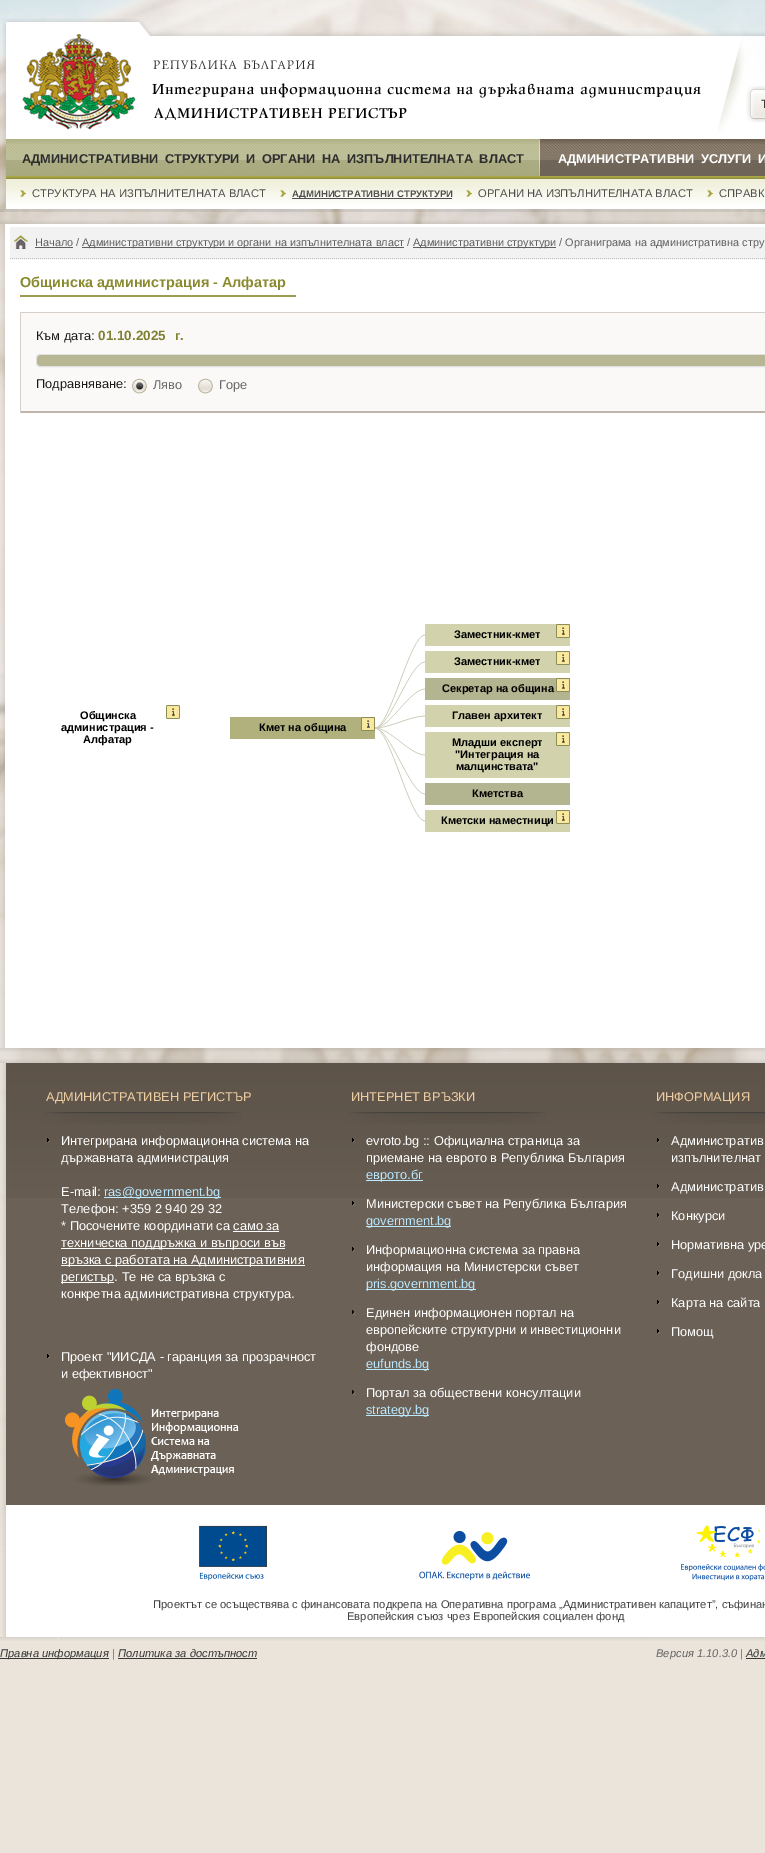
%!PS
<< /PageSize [765 1853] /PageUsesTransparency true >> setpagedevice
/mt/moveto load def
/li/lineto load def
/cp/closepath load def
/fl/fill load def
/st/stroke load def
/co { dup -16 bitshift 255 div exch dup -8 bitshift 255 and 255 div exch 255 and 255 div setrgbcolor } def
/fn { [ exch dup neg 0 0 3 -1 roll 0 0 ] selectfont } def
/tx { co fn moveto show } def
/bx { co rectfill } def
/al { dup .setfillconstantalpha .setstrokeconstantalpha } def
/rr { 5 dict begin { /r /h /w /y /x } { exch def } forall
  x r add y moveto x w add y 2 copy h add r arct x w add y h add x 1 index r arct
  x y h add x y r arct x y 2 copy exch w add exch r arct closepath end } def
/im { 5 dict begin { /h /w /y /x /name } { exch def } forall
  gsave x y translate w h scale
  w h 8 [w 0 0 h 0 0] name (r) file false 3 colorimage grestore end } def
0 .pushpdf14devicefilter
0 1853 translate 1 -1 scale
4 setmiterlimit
0 0 765 1853 16#EAE4DB bx
(media/1.raw) 0 0 765 1569 im
(media/2.raw) 2 18 763 18 im
(media/3.raw) 2 36 763 173 im
(media/4.raw) 22 34 114 96 im
(media/5.raw) 152 60 549 60 im
(media/6.raw) 718 36 47 96 im
(media/7.raw) 746 86 19 37 im
(media/8.raw) 540 139 225 37 im
(media/9.raw) 6 139 534 37 im
(media/10.raw) 539 140 1 36 im
(media/11.raw) 6 176 759 29 im
(media/12.raw) 20 190 6 7 im
(media/12.raw) 280 190 6 7 im
292 198 160 1 16#4F4F4F bx
(media/12.raw) 466 190 6 7 im
(media/12.raw) 707 190 6 7 im
0.13 al
0 209 765 3 16#585858 bx
1 al
(media/13.raw) 0 220 765 4 im
(media/14.raw) 2 224 3 824 im
5 224 760 824 16#FFFFFF bx
10 227 755 32 16#F2F2F2 bx
(media/15.raw) 14 235 14 14 im
16#C2C2C2 co
[1 1] 0 setdash
10 258.5 mt 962 258.5 li st
35 247 38 1 16#5F5F5F bx
82 247 322 1 16#5F5F5F bx
413 247 143 1 16#5F5F5F bx
20 295 276 2 16#9D9D51 bx
21 313 744 98 16#FBF9F7 bx
20 312 745 1 16#D7D0CA bx
16#BEB4AC co
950 413 mt 20 413 li 21 411 li 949 411 li cp fl
16#D7D0CA co
20 413 mt 20 312 li 21 313 li 21 411 li cp fl
16#EFEFEF co
36 354 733 13 4 rr fl
0.9 al
36 355 5 12 16#F8F8F8 bx
1 al
16#E0E0E0 co
[] 0 setdash
36.5 354.5 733 12 3.5 rr st
16#B7B794 co
37 355 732 11 4 rr fl
(media/16.raw) 132 378 15 16 im
(media/17.raw) 198 378 15 16 im
(media/18.raw) 230 624 340 208 im
(media/19.raw) 556 624 14 14 im
(media/19.raw) 556 651 14 14 im
(media/20.raw) 556 678 14 14 im
(media/21.raw) 166 705 14 14 im
(media/19.raw) 556 705 14 14 im
(media/22.raw) 361 717 14 14 im
(media/19.raw) 556 732 14 14 im
(media/19.raw) 556 810 14 14 im
(media/23.raw) 0 1048 765 4 im
(media/24.raw) 0 1059 765 4 im
(media/25.raw) 2 1063 763 574 im
6 1198 759 307 16#6B6156 bx
(media/26.raw) 6 1063 759 135 im
(media/27.raw) 43 1112 199 12 im
(media/28.raw) 47 1138 3 5 im
104 1197 117 1 16#B9E8FF bx
233 1231 46 1 16#FFFFFF bx
61 1248 224 1 16#FFFFFF bx
61 1265 244 1 16#FFFFFF bx
61 1282 53 1 16#FFFFFF bx
(media/29.raw) 47 1354 3 5 im
(media/30.raw) 65 1389 174 97 im
(media/27.raw) 348 1112 199 12 im
(media/28.raw) 352 1138 3 5 im
366 1180 57 1 16#B9E8FF bx
(media/29.raw) 352 1201 3 5 im
366 1226 85 1 16#B9E8FF bx
(media/29.raw) 352 1247 3 5 im
366 1289 110 1 16#B9E8FF bx
(media/29.raw) 352 1310 3 5 im
366 1369 63 1 16#B9E8FF bx
(media/29.raw) 352 1390 3 5 im
366 1415 63 1 16#B9E8FF bx
(media/31.raw) 653 1112 112 12 im
(media/28.raw) 657 1138 3 5 im
(media/32.raw) 657 1184 3 5 im
(media/29.raw) 657 1213 3 5 im
(media/29.raw) 657 1242 3 5 im
(media/29.raw) 657 1271 3 5 im
(media/29.raw) 657 1300 3 5 im
(media/29.raw) 657 1329 3 5 im
(media/33.raw) 199 1525 68 56 im
(media/34.raw) 419 1531 111 50 im
(media/35.raw) 681 1525 84 56 im
(media/36.raw) 0 1637 765 4 im
0 1658 109 1 16#373737 bx
118 1658 139 1 16#373737 bx
746 1658 19 1 16#373737 bx
(Т) 761 108 /LiberationSans-Regular 12 16#45382D tx
/LiberationSans-Bold 12.8 fn
16#2E2E2E co
22 163 mt 3 0 32 (АДМИНИСТРАТИВНИ СТРУКТУРИ И ОРГАНИ НА ИЗПЪЛНИТЕЛНАТА ВЛАСТ) widthshow
16#FFFFFF co
558 163 mt 3 0 32 (АДМИНИСТРАТИВНИ УСЛУГИ И) widthshow
(СТРУКТУРА НА ИЗПЪЛНИТЕЛНАТА ВЛАСТ) 32 197 /LiberationSans-Regular 11.2 16#4F4F4F tx
(АДМИНИСТРАТИВНИ СТРУКТУРИ) 292 197 /LiberationSans-Bold 9.6 16#4F4F4F tx
(ОРГАНИ НА ИЗПЪЛНИТЕЛНАТА ВЛАСТ) 478 197 /LiberationSans-Regular 11.2 16#4F4F4F tx
(СПРАВК) 719 197 /LiberationSans-Regular 11.2 16#4F4F4F tx
(Начало /) 35 246 /LiberationSans-Regular 10.9 16#5F5F5F tx
(Административни структури и органи на изпълнителната власт /) 82 246 /LiberationSans-Regular 10.9 16#5F5F5F tx
(Административни структури / Органиграма на административна стру) 413 246 /LiberationSans-Regular 10.9 16#5F5F5F tx
(Общинска администрация - Алфатар) 20 287 /LiberationSans-Bold 14.4 16#89892E tx
(Към дата:) 36 340 /LiberationSans-Regular 12.8 16#191919 tx
(01.10.2025) 98 340 /LiberationSans-Bold 13.5 16#7F8033 tx
(г.) 175 340 /LiberationSans-Bold 12.8 16#7F8033 tx
(Подравняване:) 36 388 /LiberationSans-Regular 12.8 16#191919 tx
(Ляво) 153 389 /LiberationSans-Regular 12.8 16#666666 tx
(Горе) 219 389 /LiberationSans-Regular 12.8 16#666666 tx
(Заместник-кмет) 454 638 /LiberationSans-Bold 11 16#000000 tx
(Заместник-кмет) 454 665 /LiberationSans-Bold 11 16#000000 tx
(Секретар на община) 442 692 /LiberationSans-Bold 11 16#000000 tx
(Общинска) 80 719 /LiberationSans-Bold 11 16#000000 tx
(администрация -) 61 731 /LiberationSans-Bold 11 16#000000 tx
(Алфатар) 83 743 /LiberationSans-Bold 11 16#000000 tx
(Главен архитект) 452 719 /LiberationSans-Bold 11 16#000000 tx
(Кмет на община) 259 731 /LiberationSans-Bold 11 16#000000 tx
(Младши експерт) 452 746 /LiberationSans-Bold 11 16#000000 tx
("Интеграция на) 455 758 /LiberationSans-Bold 11 16#000000 tx
(малцинствата") 456 770 /LiberationSans-Bold 11 16#000000 tx
(Кметства) 472 797 /LiberationSans-Bold 11 16#000000 tx
(Кметски наместници) 441 824 /LiberationSans-Bold 11 16#000000 tx
(АДМИНИСТРАТИВЕН РЕГИСТЪР) 46 1101 /LiberationSans-Regular 12.8 16#EECEA1 tx
(Интегрирана информационна система на) 61 1145 /LiberationSans-Regular 12.8 16#FFFFFF tx
(държавната администрация) 61 1162 /LiberationSans-Regular 12.8 16#FFFFFF tx
(E-mail:) 61 1196 /LiberationSans-Regular 12.8 16#FFFFFF tx
(ras@government.bg) 104 1196 /LiberationSans-Regular 12.8 16#B9E8FF tx
(Телефон: +359 2 940 29 32) 61 1213 /LiberationSans-Regular 12.8 16#FFFFFF tx
(* Посочените координати са само за) 61 1230 /LiberationSans-Regular 12.8 16#FFFFFF tx
(техническа поддръжка и въпроси във) 61 1247 /LiberationSans-Regular 12.8 16#FFFFFF tx
(връзка с работата на Административния) 61 1264 /LiberationSans-Regular 12.8 16#FFFFFF tx
(регистър. Те не са връзка с) 61 1281 /LiberationSans-Regular 12.8 16#FFFFFF tx
(конкретна административна структура.) 61 1298 /LiberationSans-Regular 12.8 16#FFFFFF tx
(Проект "ИИСДА - гаранция за прозрачност) 61 1361 /LiberationSans-Regular 12.8 16#FFFFFF tx
(и ефективност") 61 1378 /LiberationSans-Regular 12.8 16#FFFFFF tx
(ИНТЕРНЕТ ВРЪЗКИ) 351 1101 /LiberationSans-Regular 12.8 16#EECEA1 tx
(evroto.bg :: Официална страница за) 366 1145 /LiberationSans-Regular 12.8 16#FFFFFF tx
(приемане на еврото в Република България) 366 1162 /LiberationSans-Regular 12.8 16#FFFFFF tx
(еврото.бг) 366 1179 /LiberationSans-Regular 12.8 16#B9E8FF tx
(Министерски съвет на Република България) 366 1208 /LiberationSans-Regular 12.8 16#FFFFFF tx
(government.bg) 366 1225 /LiberationSans-Regular 12.8 16#B9E8FF tx
(Информационна система за правна) 366 1254 /LiberationSans-Regular 12.8 16#FFFFFF tx
(информация на Министерски съвет) 366 1271 /LiberationSans-Regular 12.8 16#FFFFFF tx
(pris.government.bg) 366 1288 /LiberationSans-Regular 12.8 16#B9E8FF tx
(Eдинен информационен портал на) 366 1317 /LiberationSans-Regular 12.8 16#FFFFFF tx
(европейските структурни и инвестиционни) 366 1334 /LiberationSans-Regular 12.8 16#FFFFFF tx
(фондове) 366 1351 /LiberationSans-Regular 12.8 16#FFFFFF tx
(eufunds.bg) 366 1368 /LiberationSans-Regular 12.8 16#B9E8FF tx
(Портал за обществени консултации) 366 1397 /LiberationSans-Regular 12.8 16#FFFFFF tx
(strategy.bg) 366 1414 /LiberationSans-Regular 12.8 16#B9E8FF tx
(ИНФОРМАЦИЯ) 656 1101 /LiberationSans-Regular 12.8 16#EECEA1 tx
(Административ) 671 1145 /LiberationSans-Regular 12.8 16#FFFFFF tx
(изпълнителнат) 671 1162 /LiberationSans-Regular 12.8 16#FFFFFF tx
(Административ) 671 1191 /LiberationSans-Regular 12.8 16#FFFFFF tx
(Конкурси) 671 1220 /LiberationSans-Regular 12.8 16#FFFFFF tx
(Нормативна уре) 671 1249 /LiberationSans-Regular 12.8 16#FFFFFF tx
(Годишни докла) 671 1278 /LiberationSans-Regular 12.8 16#FFFFFF tx
(Карта на сайта) 671 1307 /LiberationSans-Regular 12.8 16#FFFFFF tx
(Помощ) 671 1336 /LiberationSans-Regular 12.8 16#FFFFFF tx
(Проектът се осъществява с финансовата подкрепа на Оперативна програма „Административен капацитет”, съфинан) 153 1608 /LiberationSans-Regular 11.2 16#404040 tx
(Европейския съюз чрез Европейския социален фонд) 347 1620 /LiberationSans-Regular 11.2 16#404040 tx
(Правна информация) 0 1657 /LiberationSans-Italic 11.2 16#373737 tx
(|) 112 1657 /LiberationSans-Italic 11.2 16#666666 tx
(Политика за достъпност) 118 1657 /LiberationSans-Italic 11.2 16#373737 tx
(Версия 1.10.3.0 |) 656 1657 /LiberationSans-Italic 11.2 16#666666 tx
(Адм) 746 1657 /LiberationSans-Italic 11.2 16#373737 tx
.poppdf14devicefilter showpage
